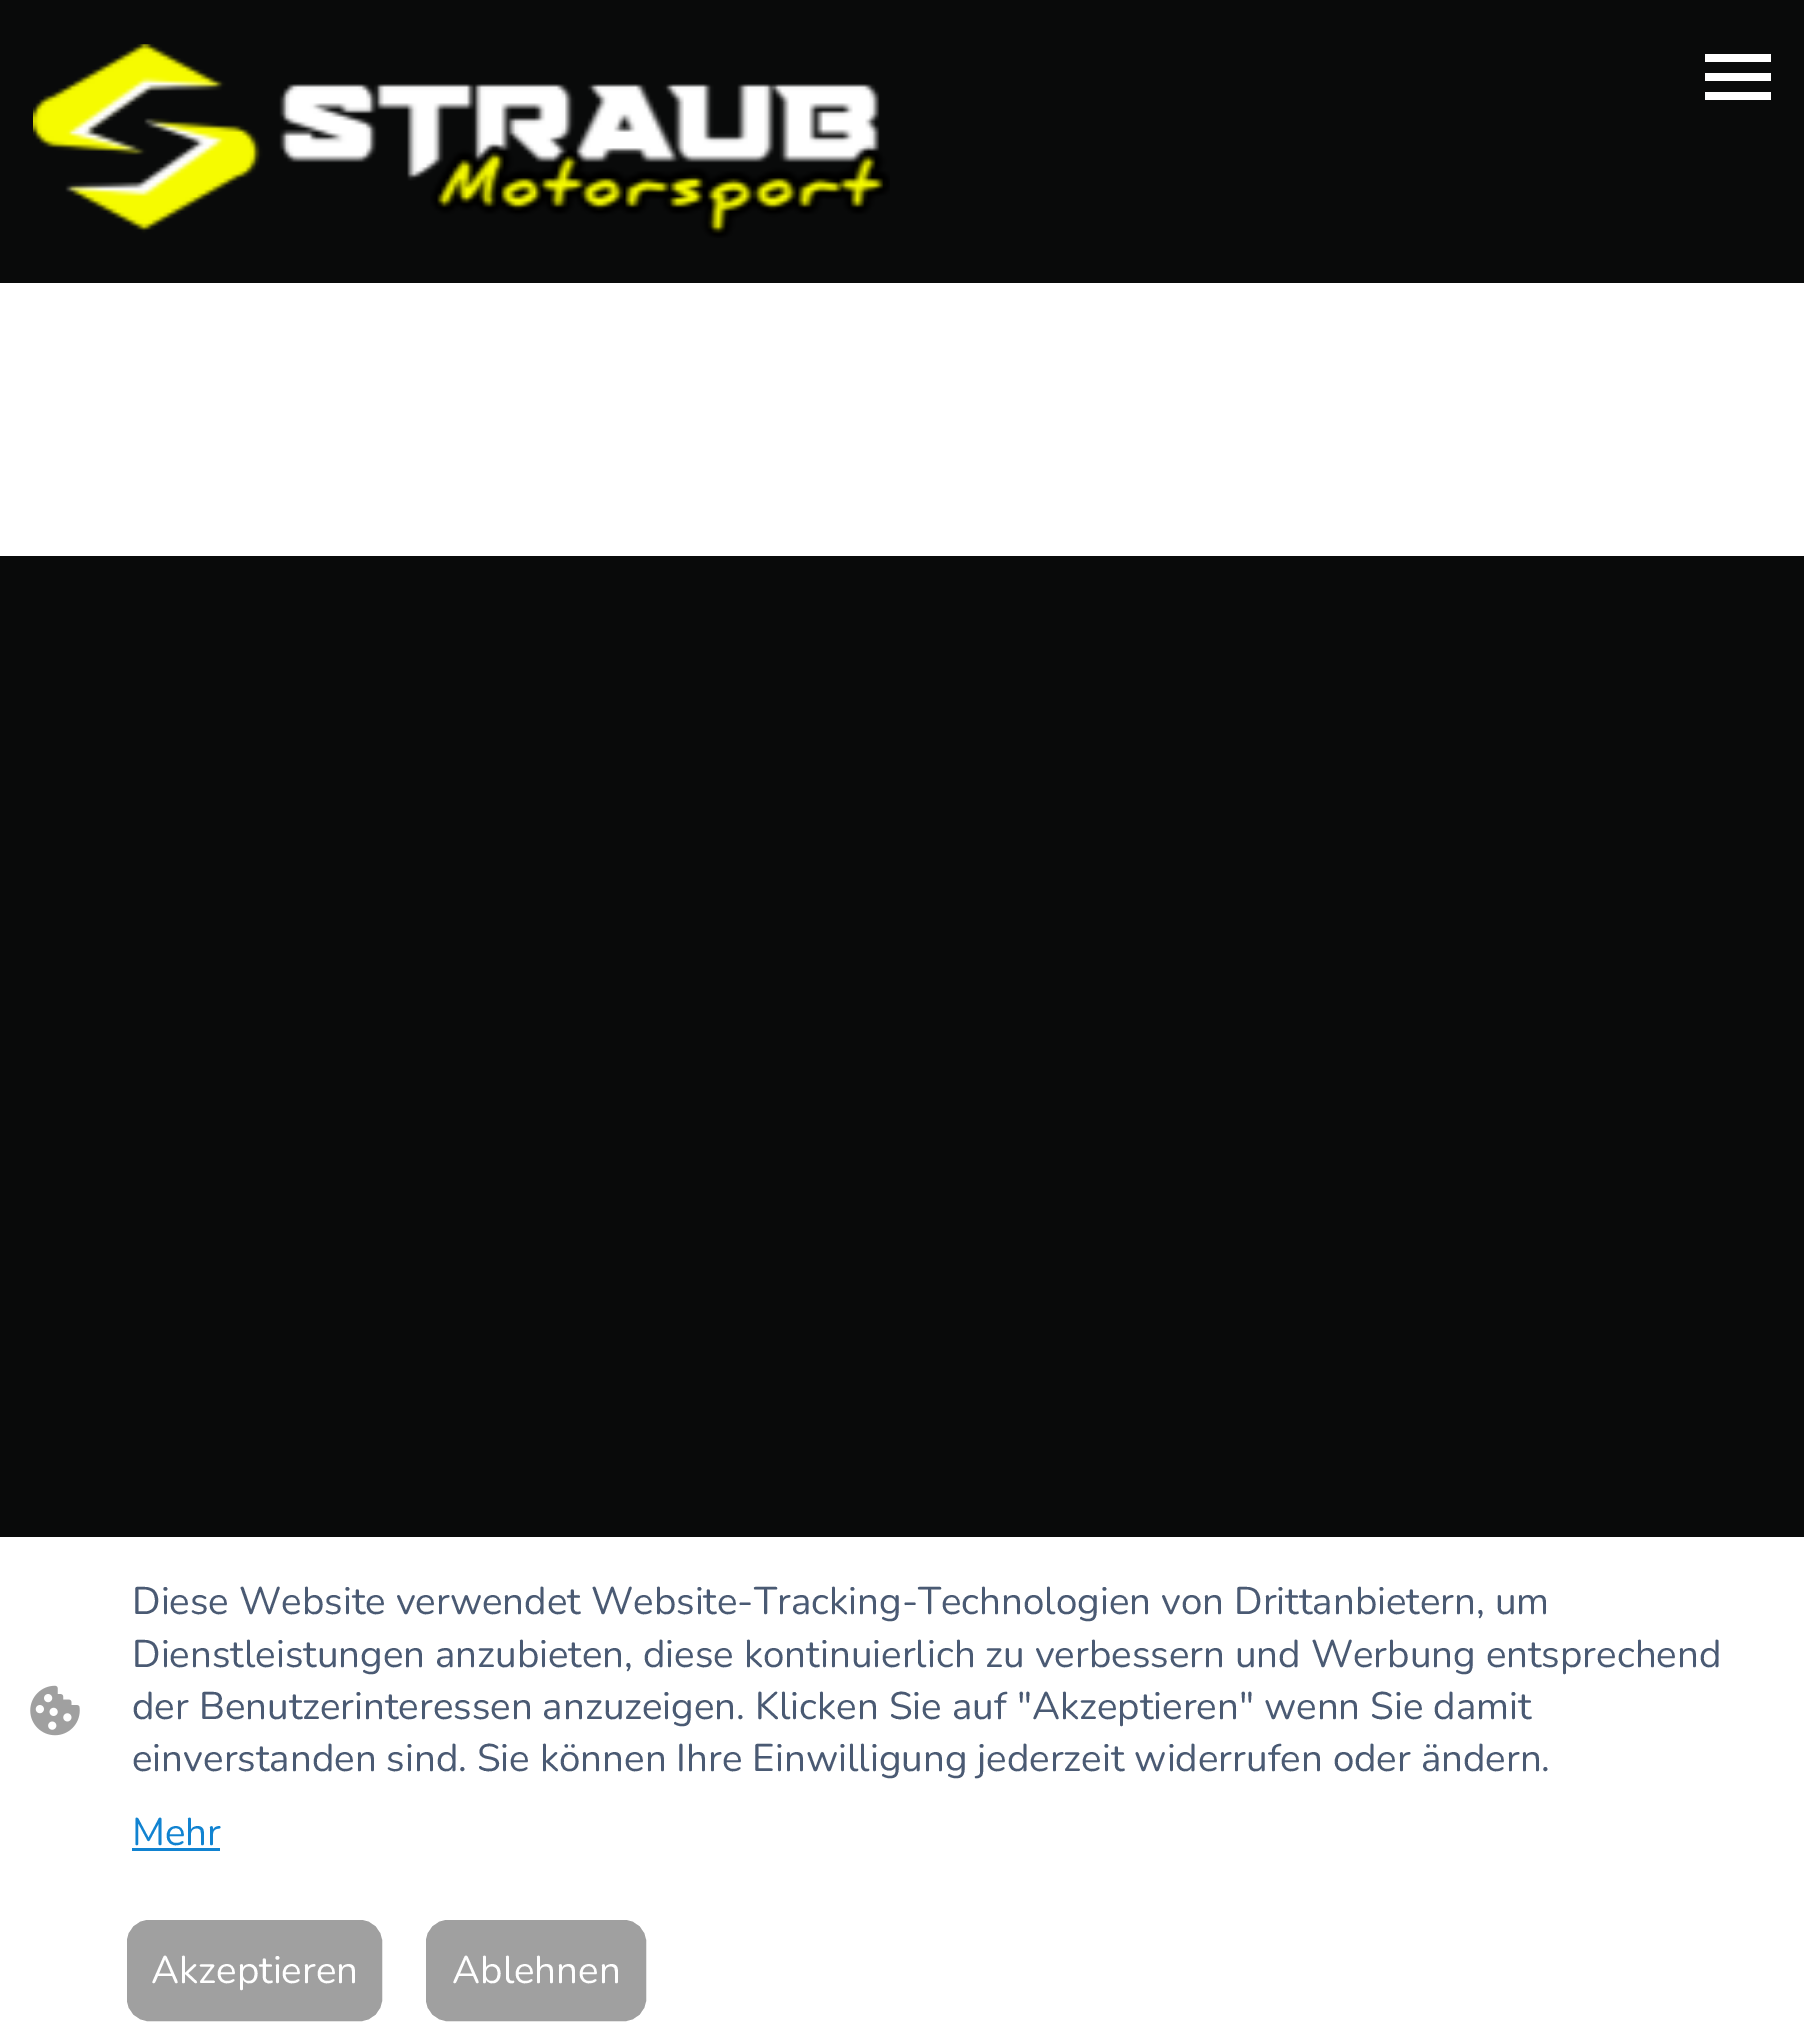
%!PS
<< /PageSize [1804 2041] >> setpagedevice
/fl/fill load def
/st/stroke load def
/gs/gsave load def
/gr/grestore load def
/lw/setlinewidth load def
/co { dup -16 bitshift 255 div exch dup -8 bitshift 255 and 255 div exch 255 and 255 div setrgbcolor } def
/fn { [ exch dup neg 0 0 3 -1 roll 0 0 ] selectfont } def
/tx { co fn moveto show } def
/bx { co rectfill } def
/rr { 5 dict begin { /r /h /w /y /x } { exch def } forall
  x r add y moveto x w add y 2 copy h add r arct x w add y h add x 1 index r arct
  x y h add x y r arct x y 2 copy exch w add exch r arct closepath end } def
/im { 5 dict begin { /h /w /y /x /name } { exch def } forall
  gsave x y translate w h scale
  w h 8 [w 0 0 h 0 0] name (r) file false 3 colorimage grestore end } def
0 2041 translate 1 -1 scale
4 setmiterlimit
0 0 1804 2041 16#090A0A bx
(media/1.raw) 33 44 857 194 im
1705 54 66 8 16#FFFFFF bx
1705 73 66 8 16#FFFFFF bx
1705 92 66 8 16#FFFFFF bx
0 283 1804 273 16#FFFFFF bx
0 1537 1804 504 16#FFFFFF bx
(media/2.raw) 30 1685 50 51 im
132 1848 88 3 16#1183D1 bx
16#A0A0A0 co
128.5 1921.5 252 98 20.5 rr gs fl gr
3 lw
st
427.5 1921.5 217 98 20.5 rr gs fl gr
st
(Diese Website verwendet Website-Tracking-Technologien von Drittanbietern, um) 132 1614 /Nunito-Regular 38.5 16#4A5A73 tx
(Dienstleistungen anzubieten, diese kontinuierlich zu verbessern und Werbung entsprechend) 132 1667 /Nunito-Regular 38.5 16#4A5A73 tx
(der Benutzerinteressen anzuzeigen. Klicken Sie auf "Akzeptieren" wenn Sie damit) 132 1719 /Nunito-Regular 38.5 16#4A5A73 tx
(einverstanden sind. Sie können Ihre Einwilligung jederzeit widerrufen oder ändern.) 132 1771 /Nunito-Regular 38.5 16#4A5A73 tx
(Mehr) 132 1845 /Nunito-Regular 38.5 16#1183D1 tx
(Akzeptieren) 151 1983 /Nunito-Regular 38.5 16#FFFFFF tx
(Ablehnen) 452 1983 /Nunito-Regular 38.5 16#FFFFFF tx
showpage
